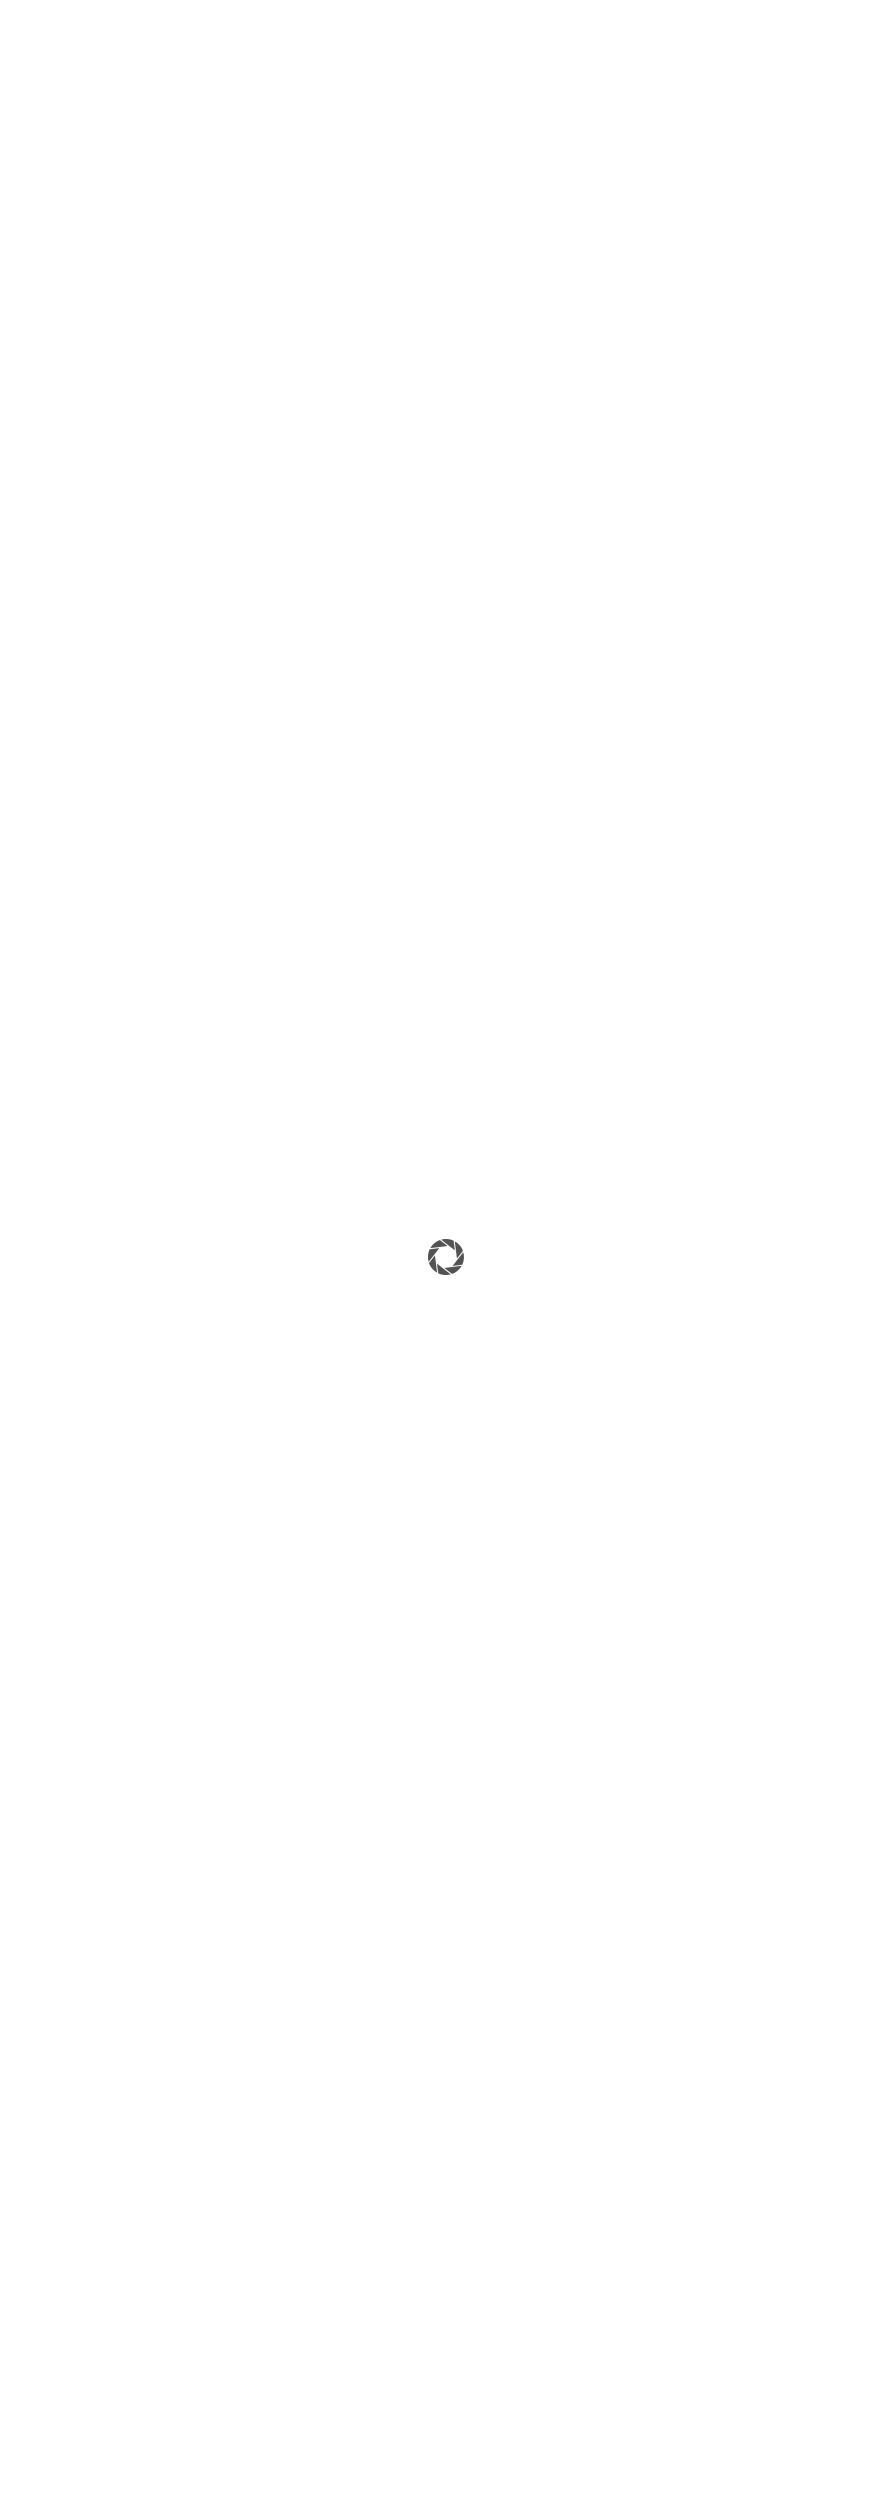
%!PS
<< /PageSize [892 2514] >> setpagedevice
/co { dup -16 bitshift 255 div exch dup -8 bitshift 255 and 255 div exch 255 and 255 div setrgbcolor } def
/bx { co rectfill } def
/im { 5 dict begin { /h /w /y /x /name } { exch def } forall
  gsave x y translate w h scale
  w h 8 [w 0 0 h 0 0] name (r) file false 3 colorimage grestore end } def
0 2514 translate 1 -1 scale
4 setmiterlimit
0 0 892 2514 16#FFFFFF bx
(media/1.raw) 428 1239 36 36 im
showpage
